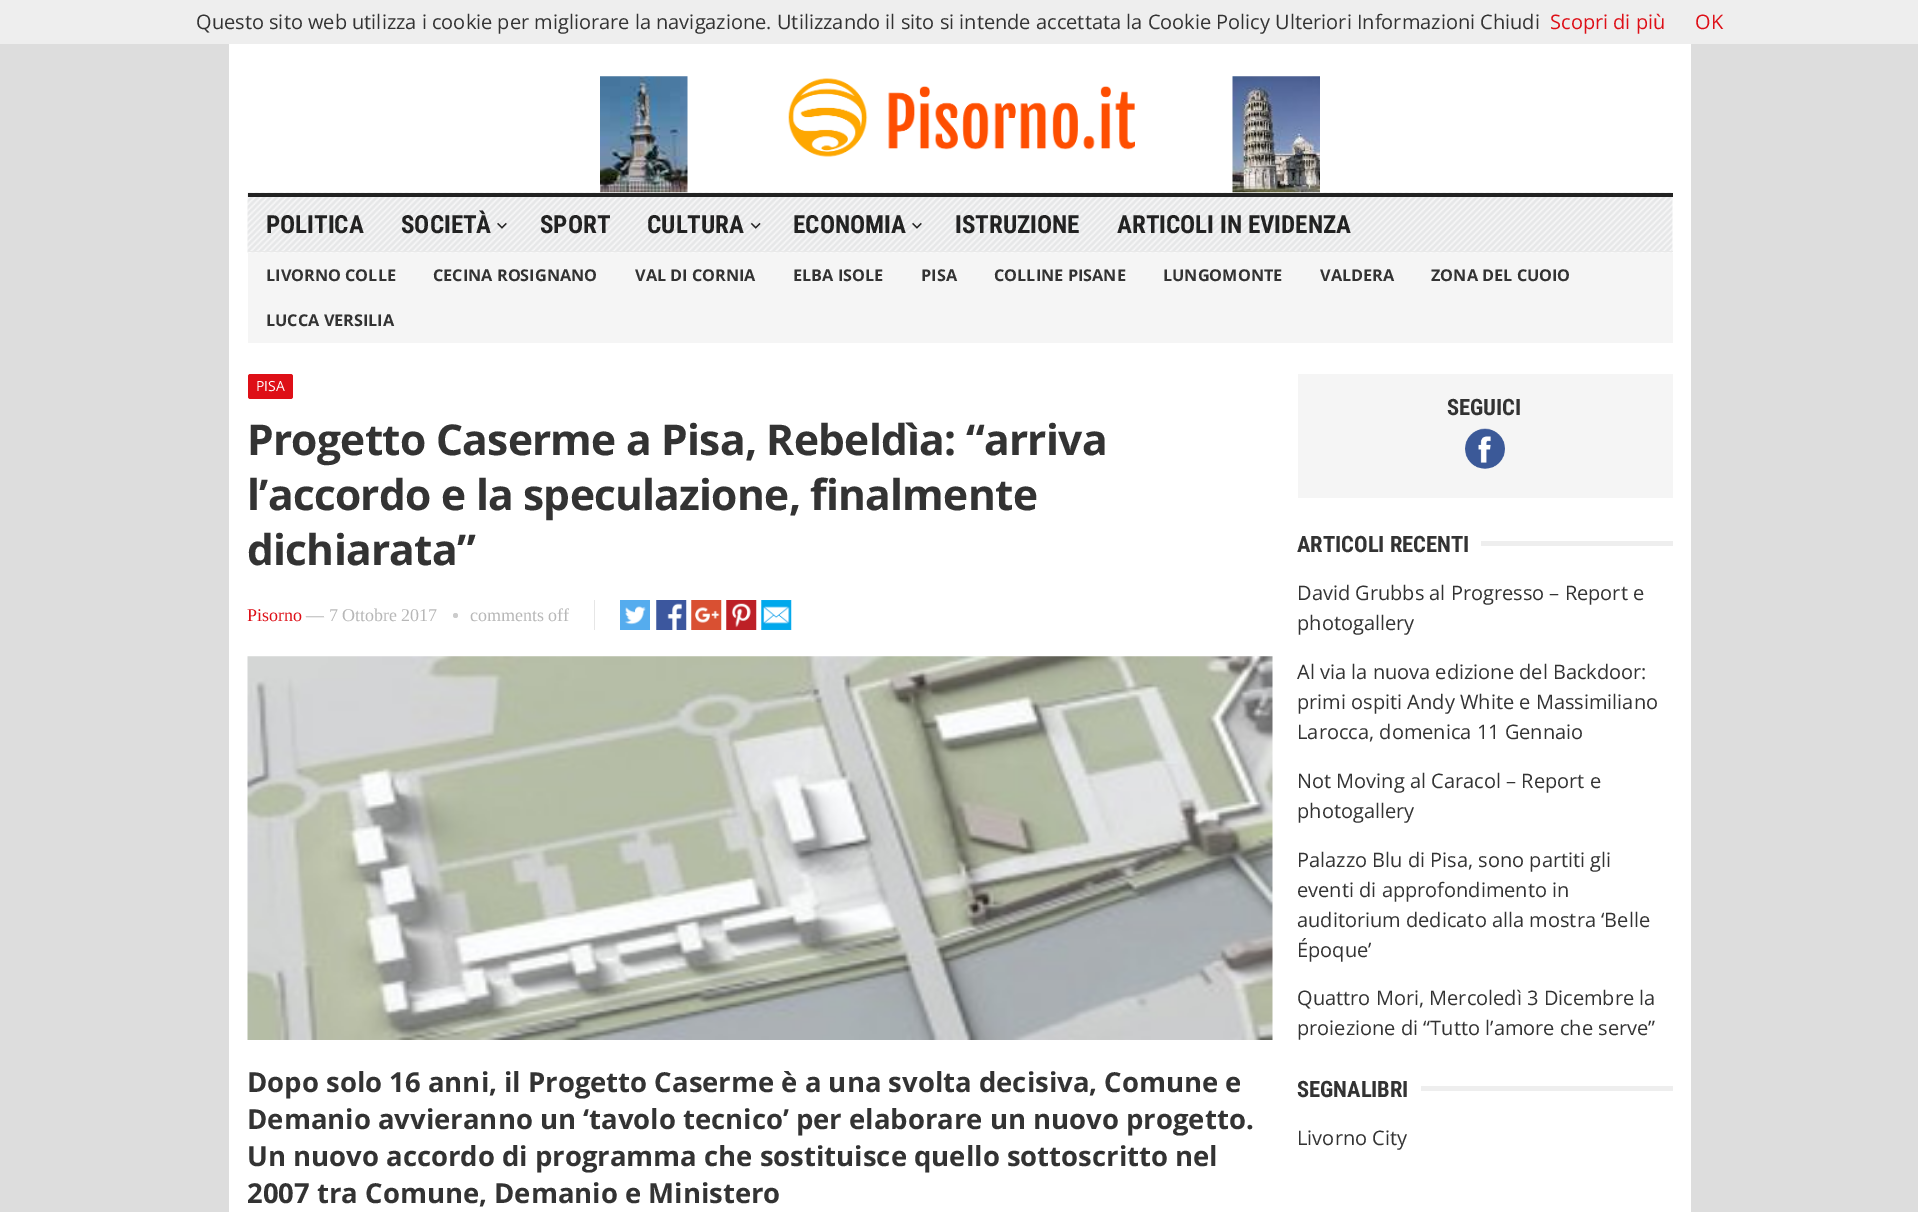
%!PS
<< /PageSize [1918 1212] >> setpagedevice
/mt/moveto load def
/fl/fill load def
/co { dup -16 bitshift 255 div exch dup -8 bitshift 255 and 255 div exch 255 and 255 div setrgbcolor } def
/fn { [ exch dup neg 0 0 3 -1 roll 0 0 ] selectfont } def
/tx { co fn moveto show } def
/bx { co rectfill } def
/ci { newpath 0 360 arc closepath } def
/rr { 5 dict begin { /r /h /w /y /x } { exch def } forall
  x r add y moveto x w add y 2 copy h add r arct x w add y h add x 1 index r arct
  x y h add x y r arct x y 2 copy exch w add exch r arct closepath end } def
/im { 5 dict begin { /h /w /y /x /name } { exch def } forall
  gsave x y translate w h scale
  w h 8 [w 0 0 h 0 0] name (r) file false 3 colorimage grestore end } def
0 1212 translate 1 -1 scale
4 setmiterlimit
0 0 1918 1212 16#DDDDDD bx
0 0 1918 44 16#EEEEEE bx
229 44 1462 1168 16#FFFFFF bx
(media/1.raw) 600 76 88 117 im
(media/2.raw) 788 78 347 79 im
(media/3.raw) 1232 76 88 117 im
(media/4.raw) 247 192 1426 61 im
248 193 1425 4 16#222222 bx
248 251 1425 1 16#E9E9E9 bx
(media/5.raw) 497 222 10 7 im
(media/6.raw) 750 222 11 7 im
(media/7.raw) 912 222 10 7 im
248 253 1425 90 16#F5F5F5 bx
16#DE0F17 co
248 374 45 25 2.5 rr fl
16#CCCCCC co
455.5 615.5 2.5 ci fl
594 600 1 30 16#E6E6E6 bx
(media/8.raw) 620 600 30 30 im
(media/9.raw) 656 600 31 30 im
(media/10.raw) 691 600 31 30 im
(media/11.raw) 726 600 31 30 im
(media/12.raw) 761 600 31 30 im
(media/13.raw) 247 656 1026 384 im
1298 374 375 124 16#F5F5F5 bx
(media/14.raw) 1465 428 40 41 im
1481 541 192 5 16#EEEEEE bx
1421 1086 252 5 16#EEEEEE bx
(Questo sito web utilizza i cookie per migliorare la navigazione. Utilizzando il sito si intende accettata la Cookie Policy Ulteriori Informazioni Chiudi) 196 29 /OpenSans-Regular 20 16#333333 tx
(Scopri di più) 1550 29 /OpenSans-Regular 20 16#DE0F17 tx
(OK) 1695 29 /OpenSans-Regular 20 16#DE0F17 tx
(POLITICA) 266 233 /RobotoCondensed-Bold 25 16#222222 tx
(SOCIETÀ) 401 233 /RobotoCondensed-Bold 25 16#222222 tx
(SPORT) 540 233 /RobotoCondensed-Bold 25 16#222222 tx
(CULTURA) 647 233 /RobotoCondensed-Bold 25 16#222222 tx
(ECONOMIA) 793 233 /RobotoCondensed-Bold 25 16#222222 tx
(ISTRUZIONE) 955 233 /RobotoCondensed-Bold 25 16#222222 tx
(ARTICOLI IN EVIDENZA) 1117 233 /RobotoCondensed-Bold 25 16#222222 tx
(LIVORNO COLLE) 266 281 /OpenSans-Bold 16.25 16#333333 tx
(CECINA ROSIGNANO) 433 281 /OpenSans-Bold 16.25 16#333333 tx
(VAL DI CORNIA) 635 281 /OpenSans-Bold 16.25 16#333333 tx
(ELBA ISOLE) 793 281 /OpenSans-Bold 16.25 16#333333 tx
(PISA) 921 281 /OpenSans-Bold 16.25 16#333333 tx
(COLLINE PISANE) 994 281 /OpenSans-Bold 16.25 16#333333 tx
(LUNGOMONTE) 1163 281 /OpenSans-Bold 16.25 16#333333 tx
(VALDERA) 1320 281 /OpenSans-Bold 16.25 16#333333 tx
(ZONA DEL CUOIO) 1431 281 /OpenSans-Bold 16.25 16#333333 tx
(LUCCA VERSILIA) 266 326 /OpenSans-Bold 16.25 16#333333 tx
(PISA) 256 391 /OpenSans-Regular 14 16#FFFFFF tx
/OpenSans-Bold 42.5 fn
16#333333 co
247 455 mt -.75 0 (Progetto Caserme a Pisa, Rebeldìa: “arriva) ashow
247 510 mt -.75 0 (l’accordo e la speculazione, finalmente) ashow
247 565 mt -.75 0 (dichiarata”) ashow
(Pisorno) 247 621 /LiberationSerif-Regular 18 16#DE0F17 tx
(— 7 Ottobre 2017) 306 621 /LiberationSerif-Regular 18 16#B7B7B7 tx
(comments off) 470 621 /LiberationSerif-Regular 18 16#B7B7B7 tx
(Dopo solo 16 anni, il Progetto Caserme è a una svolta decisiva, Comune e) 247 1092 /OpenSans-Bold 27.5 16#333333 tx
(Demanio avvieranno un ‘tavolo tecnico’ per elaborare un nuovo progetto.) 247 1129 /OpenSans-Bold 27.5 16#333333 tx
(Un nuovo accordo di programma che sostituisce quello sottoscritto nel) 247 1166 /OpenSans-Bold 27.5 16#333333 tx
(2007 tra Comune, Demanio e Ministero) 247 1203 /OpenSans-Bold 27.5 16#333333 tx
(SEGUICI) 1447 415 /RobotoCondensed-Bold 22.5 16#333333 tx
(ARTICOLI RECENTI) 1297 552 /RobotoCondensed-Bold 22.5 16#333333 tx
(David Grubbs al Progresso – Report e) 1297 600 /OpenSans-Regular 20 16#333333 tx
(photogallery) 1297 630 /OpenSans-Regular 20 16#333333 tx
(Al via la nuova edizione del Backdoor:) 1297 679 /OpenSans-Regular 20 16#333333 tx
(primi ospiti Andy White e Massimiliano) 1297 709 /OpenSans-Regular 20 16#333333 tx
(Larocca, domenica 11 Gennaio) 1297 739 /OpenSans-Regular 20 16#333333 tx
(Not Moving al Caracol – Report e) 1297 788 /OpenSans-Regular 20 16#333333 tx
(photogallery) 1297 818 /OpenSans-Regular 20 16#333333 tx
(Palazzo Blu di Pisa, sono partiti gli) 1297 867 /OpenSans-Regular 20 16#333333 tx
(eventi di approfondimento in) 1297 897 /OpenSans-Regular 20 16#333333 tx
(auditorium dedicato alla mostra ‘Belle) 1297 927 /OpenSans-Regular 20 16#333333 tx
(Époque’) 1297 957 /OpenSans-Regular 20 16#333333 tx
(Quattro Mori, Mercoledì 3 Dicembre la) 1297 1005 /OpenSans-Regular 20 16#333333 tx
(proiezione di “Tutto l’amore che serve”) 1297 1035 /OpenSans-Regular 20 16#333333 tx
(SEGNALIBRI) 1297 1097 /RobotoCondensed-Bold 22.5 16#333333 tx
(Livorno City) 1297 1145 /OpenSans-Regular 20 16#333333 tx
showpage
